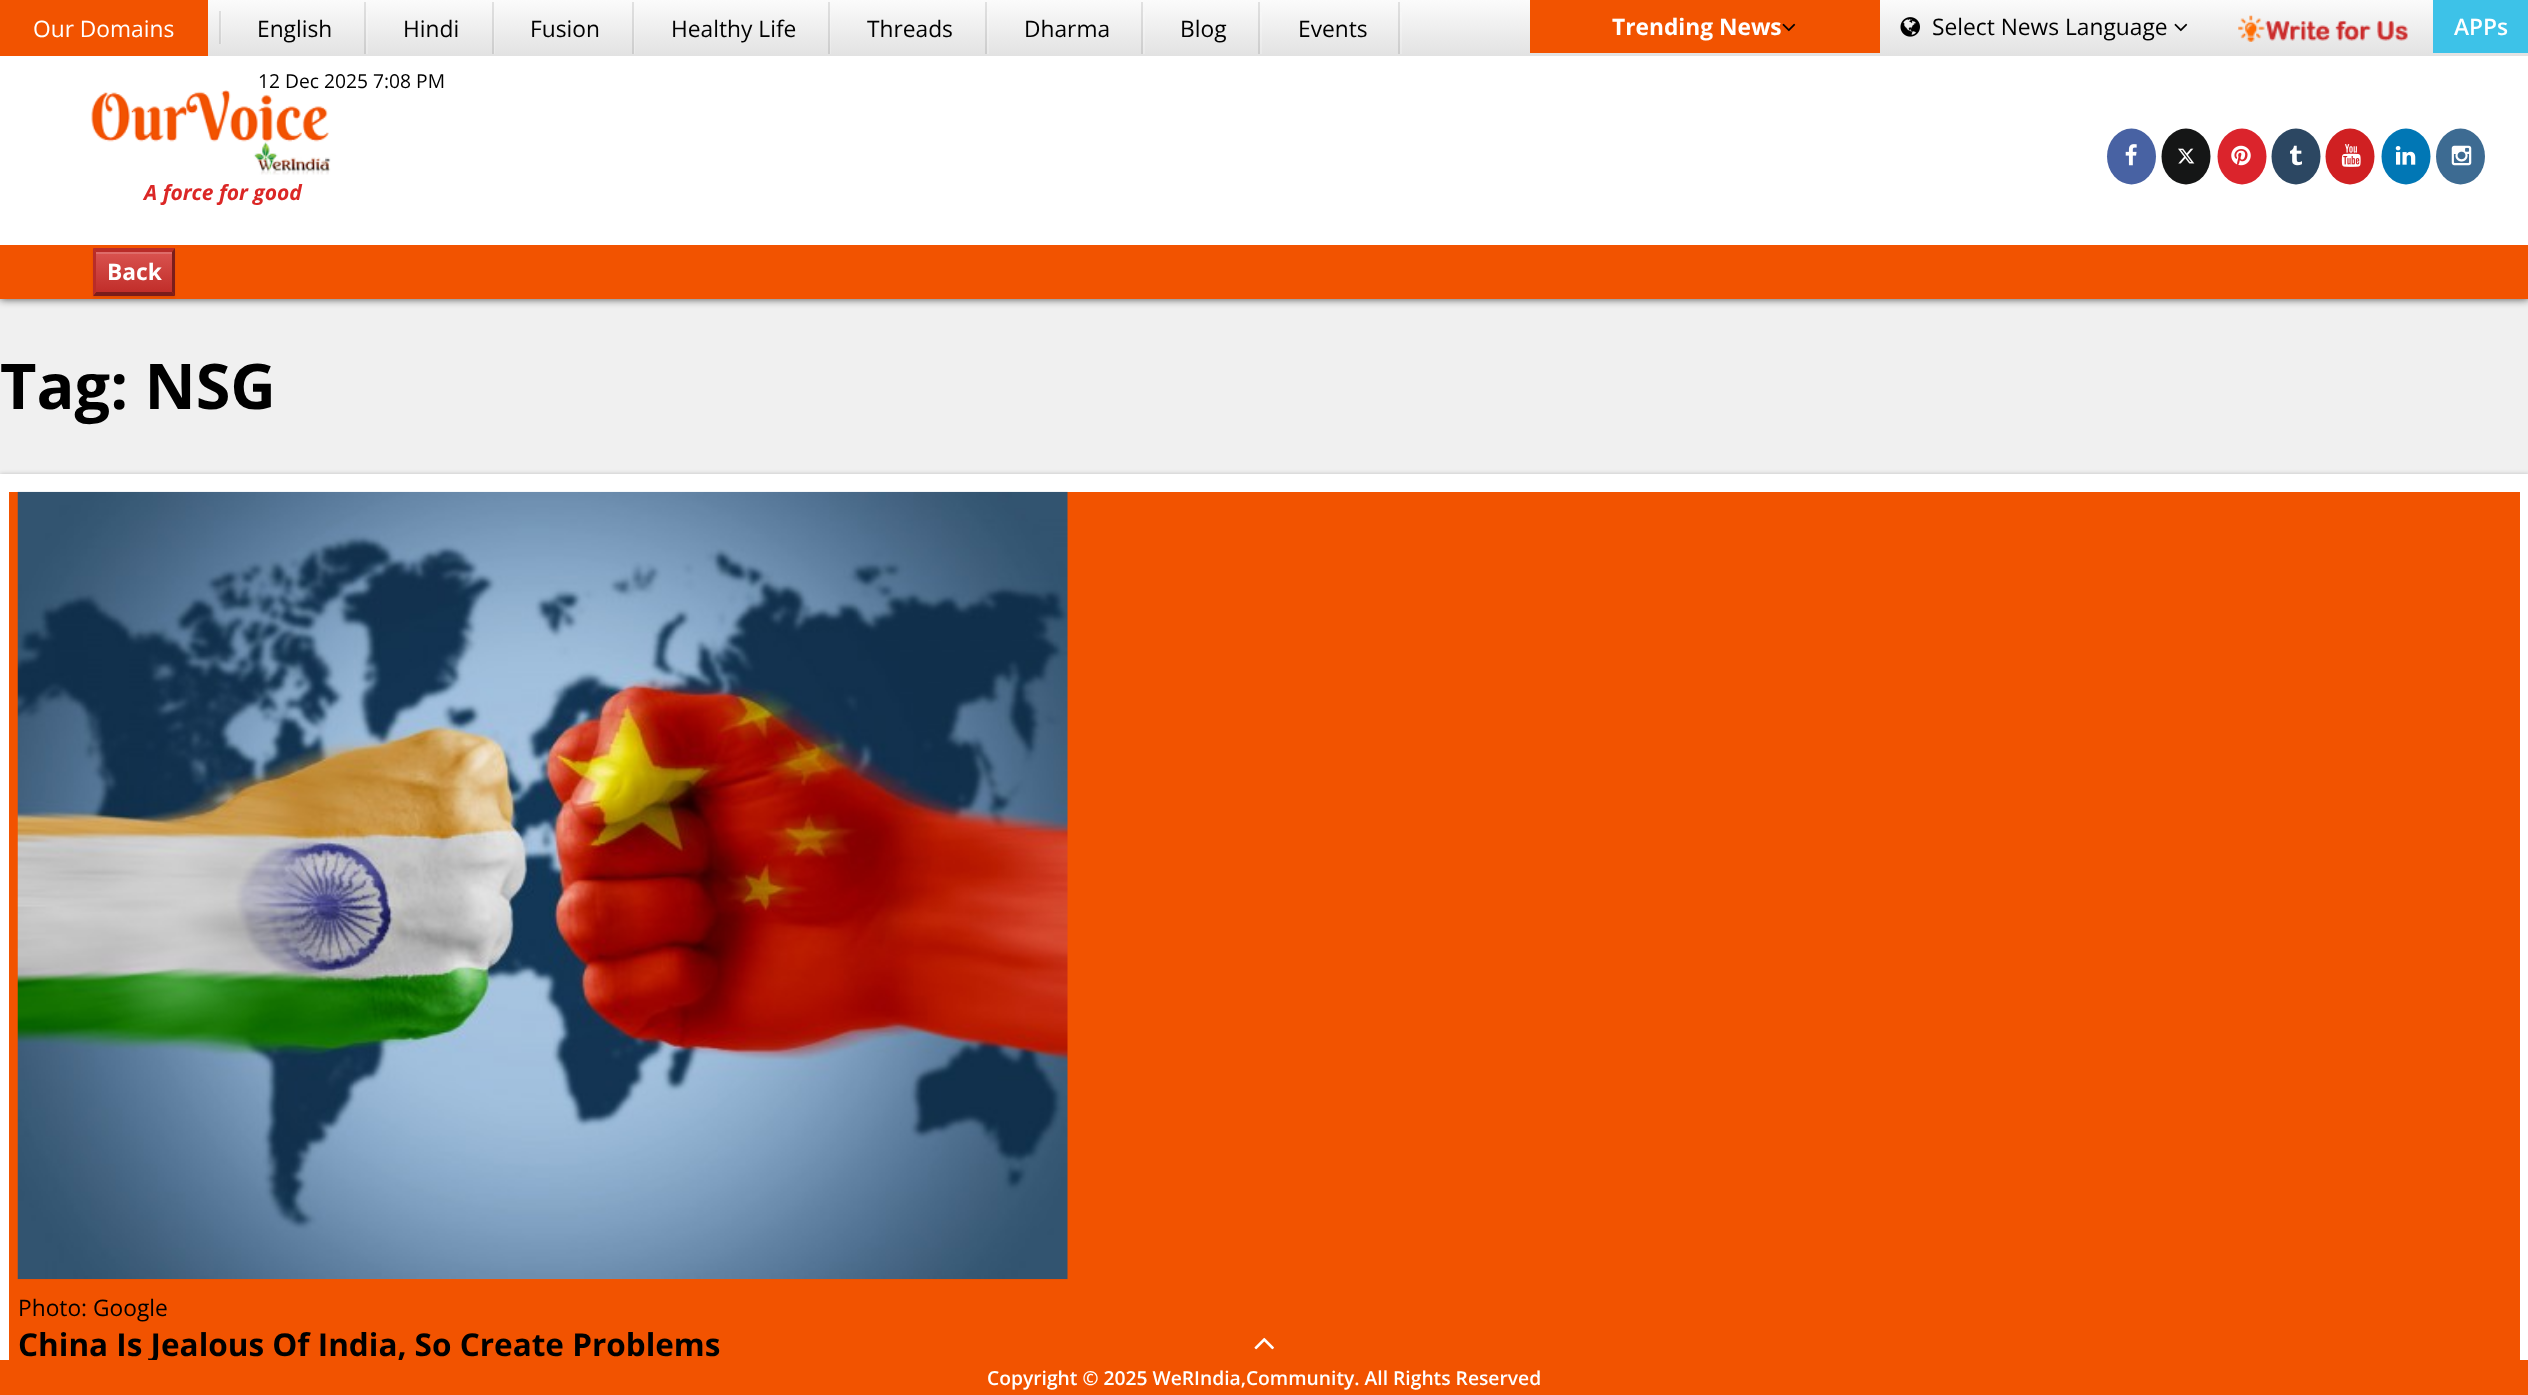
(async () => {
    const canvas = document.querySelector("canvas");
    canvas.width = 2528;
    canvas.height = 1395;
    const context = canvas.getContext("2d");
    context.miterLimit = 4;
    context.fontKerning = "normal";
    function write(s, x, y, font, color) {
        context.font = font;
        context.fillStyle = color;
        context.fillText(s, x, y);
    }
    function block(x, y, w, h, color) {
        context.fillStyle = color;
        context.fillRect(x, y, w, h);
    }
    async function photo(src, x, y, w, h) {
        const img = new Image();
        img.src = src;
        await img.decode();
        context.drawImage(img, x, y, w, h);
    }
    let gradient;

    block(0, 0, 2528, 1395, "rgb(240, 240, 240)");
    context.fillStyle = "rgba(0, 0, 0, 0.7)";
    context.filter = "blur(4.5px)";
    context.beginPath();
    context.rect(0, 0, 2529, 299);
    context.fill();
    context.filter = "none";
    block(0, 56, 2528, 189, "rgb(255, 255, 255)");
    gradient = context.createLinearGradient(1264, 0, 1264, 56);
    gradient.addColorStop(0, "rgb(251, 251, 251)");
    gradient.addColorStop(1, "rgb(226, 226, 226)");
    context.fillStyle = gradient;
    context.fillRect(208, 0, 2320, 56);
    gradient = context.createLinearGradient(1264, 0, 1264, 56);
    gradient.addColorStop(0, "rgb(226, 226, 226)");
    gradient.addColorStop(1, "rgb(203, 203, 203)");
    context.fillStyle = gradient;
    context.fillRect(1398, 2, 2, 52);
    gradient = context.createLinearGradient(1264, 0, 1264, 56);
    gradient.addColorStop(0, "rgb(252, 252, 252)");
    gradient.addColorStop(1, "rgb(232, 232, 232)");
    context.fillStyle = gradient;
    context.fillRect(1400, 12, 2, 42);
    gradient = context.createLinearGradient(1264, 0, 1264, 56);
    gradient.addColorStop(0, "rgb(226, 226, 226)");
    gradient.addColorStop(1, "rgb(203, 203, 203)");
    context.fillStyle = gradient;
    context.fillRect(1258, 2, 2, 52);
    gradient = context.createLinearGradient(1264, 0, 1264, 56);
    gradient.addColorStop(0, "rgb(252, 252, 252)");
    gradient.addColorStop(1, "rgb(232, 232, 232)");
    context.fillStyle = gradient;
    context.fillRect(1260, 12, 2, 42);
    gradient = context.createLinearGradient(1264, 0, 1264, 56);
    gradient.addColorStop(0, "rgb(226, 226, 226)");
    gradient.addColorStop(1, "rgb(203, 203, 203)");
    context.fillStyle = gradient;
    context.fillRect(1141, 2, 2, 52);
    gradient = context.createLinearGradient(1264, 0, 1264, 56);
    gradient.addColorStop(0, "rgb(252, 252, 252)");
    gradient.addColorStop(1, "rgb(232, 232, 232)");
    context.fillStyle = gradient;
    context.fillRect(1143, 12, 2, 42);
    gradient = context.createLinearGradient(1264, 0, 1264, 56);
    gradient.addColorStop(0, "rgb(226, 226, 226)");
    gradient.addColorStop(1, "rgb(203, 203, 203)");
    context.fillStyle = gradient;
    context.fillRect(985, 2, 2, 52);
    gradient = context.createLinearGradient(1264, 0, 1264, 56);
    gradient.addColorStop(0, "rgb(252, 252, 252)");
    gradient.addColorStop(1, "rgb(232, 232, 232)");
    context.fillStyle = gradient;
    context.fillRect(987, 12, 2, 42);
    gradient = context.createLinearGradient(1264, 0, 1264, 56);
    gradient.addColorStop(0, "rgb(226, 226, 226)");
    gradient.addColorStop(1, "rgb(203, 203, 203)");
    context.fillStyle = gradient;
    context.fillRect(828, 2, 2, 52);
    gradient = context.createLinearGradient(1264, 0, 1264, 56);
    gradient.addColorStop(0, "rgb(252, 252, 252)");
    gradient.addColorStop(1, "rgb(232, 232, 232)");
    context.fillStyle = gradient;
    context.fillRect(830, 12, 1, 42);
    gradient = context.createLinearGradient(1264, 0, 1264, 56);
    gradient.addColorStop(0, "rgb(226, 226, 226)");
    gradient.addColorStop(1, "rgb(203, 203, 203)");
    context.fillStyle = gradient;
    context.fillRect(632, 2, 2, 52);
    gradient = context.createLinearGradient(1264, 0, 1264, 56);
    gradient.addColorStop(0, "rgb(252, 252, 252)");
    gradient.addColorStop(1, "rgb(232, 232, 232)");
    context.fillStyle = gradient;
    context.fillRect(634, 12, 1, 42);
    gradient = context.createLinearGradient(1264, 0, 1264, 56);
    gradient.addColorStop(0, "rgb(226, 226, 226)");
    gradient.addColorStop(1, "rgb(203, 203, 203)");
    context.fillStyle = gradient;
    context.fillRect(492, 2, 2, 52);
    gradient = context.createLinearGradient(1264, 0, 1264, 56);
    gradient.addColorStop(0, "rgb(252, 252, 252)");
    gradient.addColorStop(1, "rgb(232, 232, 232)");
    context.fillStyle = gradient;
    context.fillRect(494, 12, 1, 42);
    gradient = context.createLinearGradient(1264, 0, 1264, 56);
    gradient.addColorStop(0, "rgb(226, 226, 226)");
    gradient.addColorStop(1, "rgb(203, 203, 203)");
    context.fillStyle = gradient;
    context.fillRect(364, 2, 2, 52);
    gradient = context.createLinearGradient(1264, 0, 1264, 56);
    gradient.addColorStop(0, "rgb(252, 252, 252)");
    gradient.addColorStop(1, "rgb(232, 232, 232)");
    context.fillStyle = gradient;
    context.fillRect(366, 12, 2, 42);
    context.fillStyle = "rgba(255, 255, 255, 0.2)";
    context.beginPath();
    context.moveTo(-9, 44);
    context.lineTo(222, 44);
    context.lineTo(222, 11);
    context.lineTo(220, 11);
    context.lineTo(220, 44);
    context.closePath();
    context.fill();
    block(219, 11, 2, 33, "rgba(0, 0, 0, 0.1)");
    block(0, 0, 208, 56, "rgb(242, 83, 0)");
    write("Our Domains", 33, 37, "22.75px Open Sans", "rgb(255, 255, 255)");
    write("English", 257, 37, "22.75px Open Sans", "rgb(0, 0, 0)");
    write("Hindi", 403, 37, "22.75px Open Sans", "rgb(0, 0, 0)");
    write("Fusion", 530, 37, "22.75px Open Sans", "rgb(0, 0, 0)");
    write("Healthy Life", 671, 37, "22.75px Open Sans", "rgb(0, 0, 0)");
    write("Threads", 867, 37, "22.75px Open Sans", "rgb(0, 0, 0)");
    write("Dharma", 1024, 37, "22.75px Open Sans", "rgb(0, 0, 0)");
    write("Blog", 1180, 37, "22.75px Open Sans", "rgb(0, 0, 0)");
    write("Events", 1298, 37, "22.75px Open Sans", "rgb(0, 0, 0)");
    block(1530, 0, 350, 53, "rgb(242, 83, 0)");
    write("Trending News", 1612, 35, "bold 22.75px Open Sans", "rgb(255, 255, 255)");
    await photo("media/1.png", 1782, 23, 14, 9);
    await photo("media/2.png", 1900, 17, 20, 20);
    write("Select News Language", 1932, 35, "22.75px Open Sans", "rgb(0, 0, 0)");
    await photo("media/3.png", 2174, 23, 14, 9);
    await photo("media/4.png", 2238, 15, 170, 27);
    block(2433, 0, 95, 53, "rgb(61, 194, 232)");
    write("APPs", 2454, 35, "600 22.75px Open Sans", "rgb(255, 255, 255)");
    write("12 Dec 2025 7:08 PM", 258, 88, "19.25px Open Sans", "rgb(0, 0, 0)");
    await photo("media/5.png", 91, 90, 240, 85);
    write("A force for good", 144, 200, "italic bold 21px Open Sans", "rgb(219, 39, 38)");
    context.fillStyle = "rgb(72, 98, 163)";
    context.beginPath();
    context.ellipse(2131.5, 156.5, 24.5, 28, 0, 0, Math.PI * 2);
    context.fill();
    await photo("media/6.png", 2125, 144, 12, 22);
    context.fillStyle = "rgb(21, 22, 22)";
    context.beginPath();
    context.ellipse(2186, 156.5, 24.5, 28, 0, 0, Math.PI * 2);
    context.fill();
    await photo("media/7.png", 2178, 148, 17, 16);
    context.fillStyle = "rgb(219, 36, 44)";
    context.beginPath();
    context.ellipse(2242, 156.5, 24.5, 28, 0, 0, Math.PI * 2);
    context.fill();
    await photo("media/8.png", 2231, 145, 20, 21);
    context.fillStyle = "rgb(44, 71, 98)";
    context.beginPath();
    context.ellipse(2296, 156.5, 24.5, 28, 0, 0, Math.PI * 2);
    context.fill();
    await photo("media/9.png", 2290, 145, 12, 21);
    context.fillStyle = "rgb(208, 32, 34)";
    context.beginPath();
    context.ellipse(2350, 156.5, 24.5, 28, 0, 0, Math.PI * 2);
    context.fill();
    await photo("media/10.png", 2341, 144, 20, 23);
    context.fillStyle = "rgb(1, 119, 181)";
    context.beginPath();
    context.ellipse(2406, 156.5, 24.5, 28, 0, 0, Math.PI * 2);
    context.fill();
    await photo("media/11.png", 2395, 146, 21, 19);
    context.fillStyle = "rgb(61, 107, 146)";
    context.beginPath();
    context.ellipse(2460.5, 156.5, 24.5, 28, 0, 0, Math.PI * 2);
    context.fill();
    await photo("media/12.png", 2451, 145, 21, 21);
    block(0, 245, 2528, 54, "rgb(242, 83, 0)");
    context.fillStyle = "rgba(0, 0, 0, 0.07)";
    context.filter = "blur(1px)";
    context.beginPath();
    context.rect(93, 250, 82, 48);
    context.fill();
    context.filter = "none";
    gradient = context.createLinearGradient(134, 252, 134, 292);
    gradient.addColorStop(0, "rgb(217, 83, 79)");
    gradient.addColorStop(1, "rgb(193, 46, 42)");
    context.fillStyle = gradient;
    context.fillRect(96, 254, 76, 38);
    block(96, 252, 76, 2, "rgb(222, 108, 105)");
    context.fillStyle = "rgb(185, 44, 40)";
    context.beginPath();
    context.moveTo(93, 248);
    context.lineTo(175, 248);
    context.lineTo(172, 252);
    context.lineTo(96, 252);
    context.closePath();
    context.fill();
    context.fillStyle = "rgb(123, 29, 27)";
    context.beginPath();
    context.moveTo(175, 248);
    context.lineTo(175, 296);
    context.lineTo(172, 292);
    context.lineTo(172, 252);
    context.closePath();
    context.fill();
    context.beginPath();
    context.moveTo(175, 296);
    context.lineTo(93, 296);
    context.lineTo(96, 292);
    context.lineTo(172, 292);
    context.closePath();
    context.fill();
    context.fillStyle = "rgb(185, 44, 40)";
    context.beginPath();
    context.moveTo(93, 296);
    context.lineTo(93, 248);
    context.lineTo(96, 252);
    context.lineTo(96, 292);
    context.closePath();
    context.fill();
    write("Back", 107, 280, "bold 22.75px Open Sans", "rgb(255, 255, 255)");
    write("Tag: NSG", 0, 409, "bold 63px Open Sans", "rgb(0, 0, 0)");
    context.fillStyle = "rgba(0, 0, 0, 0.2)";
    context.filter = "blur(2px)";
    context.beginPath();
    context.rect(0, 474, 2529, 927);
    context.fill();
    context.filter = "none";
    block(0, 474, 2528, 886, "rgb(255, 255, 255)");
    block(9, 492, 2511, 868, "rgb(242, 83, 0)");
    await photo("media/13.png", 17, 491, 1051, 789);
    write("Photo: Google", 18, 1316, "22.75px Open Sans", "rgb(0, 0, 0)");
    write("China Is Jealous Of India, So Create Problems", 18, 1356, "bold 31.5px Open Sans", "rgb(0, 0, 0)");
    block(0, 1360, 2528, 35, "rgb(242, 83, 0)");
    await photo("media/14.png", 1254, 1337, 20, 13);
    write("Copyright © 2025 WeRIndia,Community. All Rights Reserved", 987, 1385, "600 19.25px Open Sans", "rgb(255, 255, 255)");
})();
